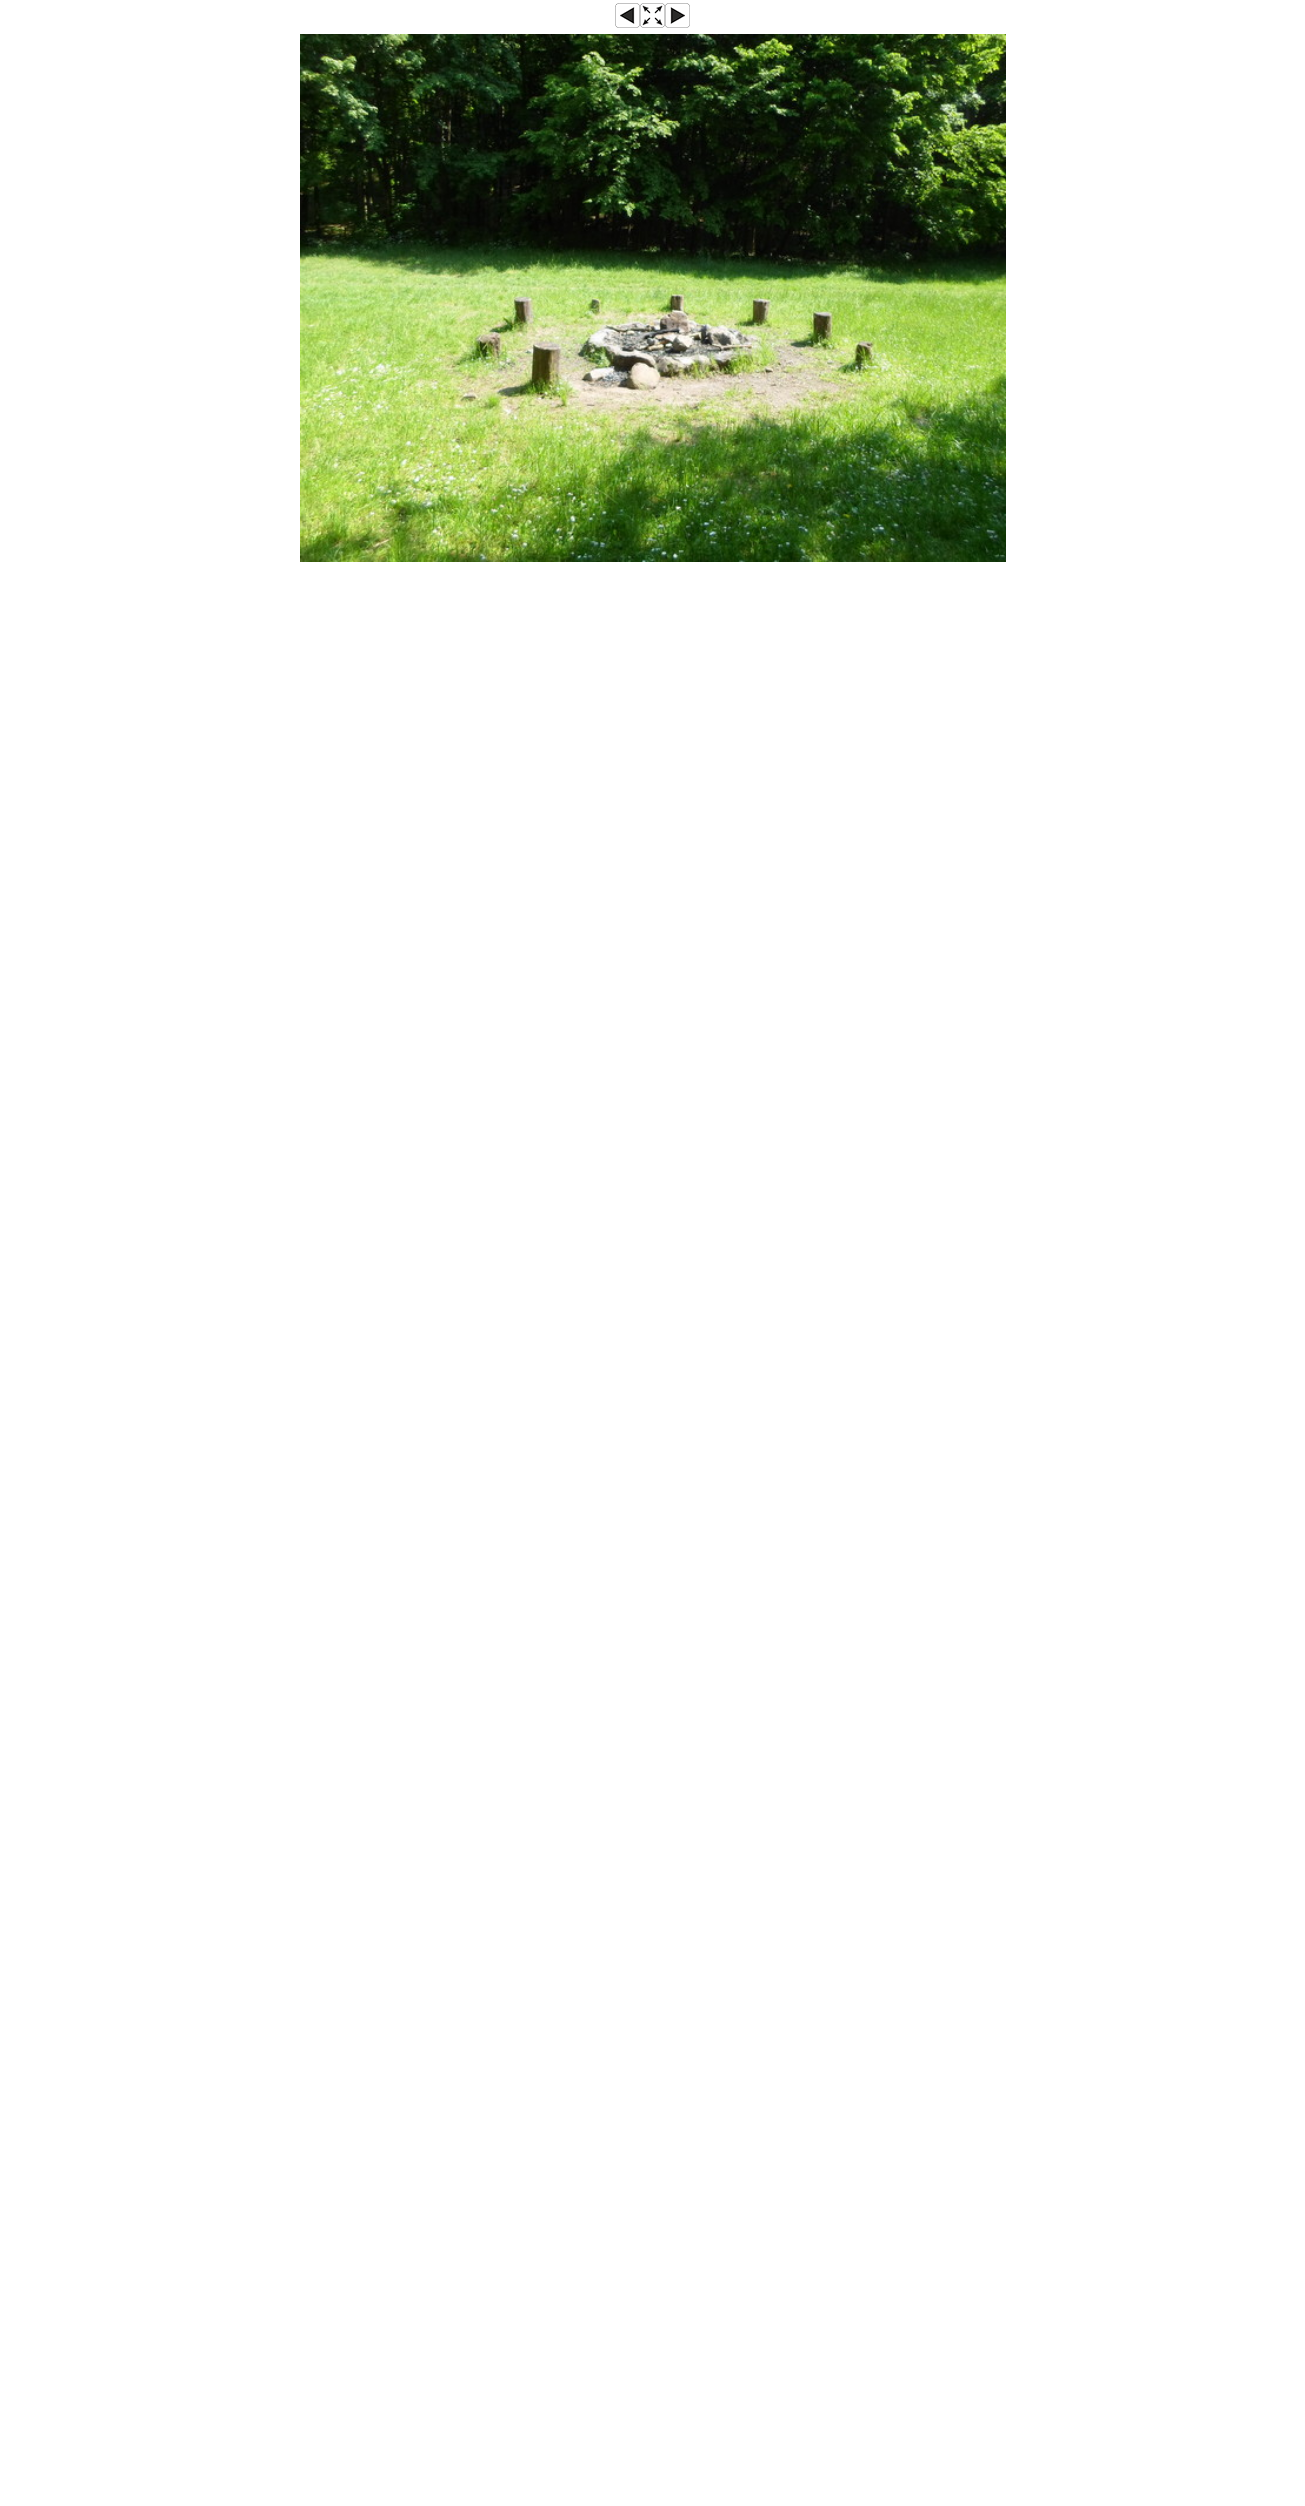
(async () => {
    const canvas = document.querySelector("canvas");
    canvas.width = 1305;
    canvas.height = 2506;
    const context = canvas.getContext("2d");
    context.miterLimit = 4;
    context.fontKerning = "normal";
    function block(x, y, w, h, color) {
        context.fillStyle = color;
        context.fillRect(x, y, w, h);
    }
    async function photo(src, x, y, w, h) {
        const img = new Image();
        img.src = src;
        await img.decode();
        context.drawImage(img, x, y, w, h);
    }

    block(0, 0, 1305, 2506, "rgb(255, 255, 255)");
    await photo("media/1.png", 615, 3, 25, 25);
    await photo("media/2.png", 640, 3, 25, 25);
    await photo("media/3.png", 665, 3, 25, 25);
    await photo("media/4.png", 300, 34, 706, 528);
})();
